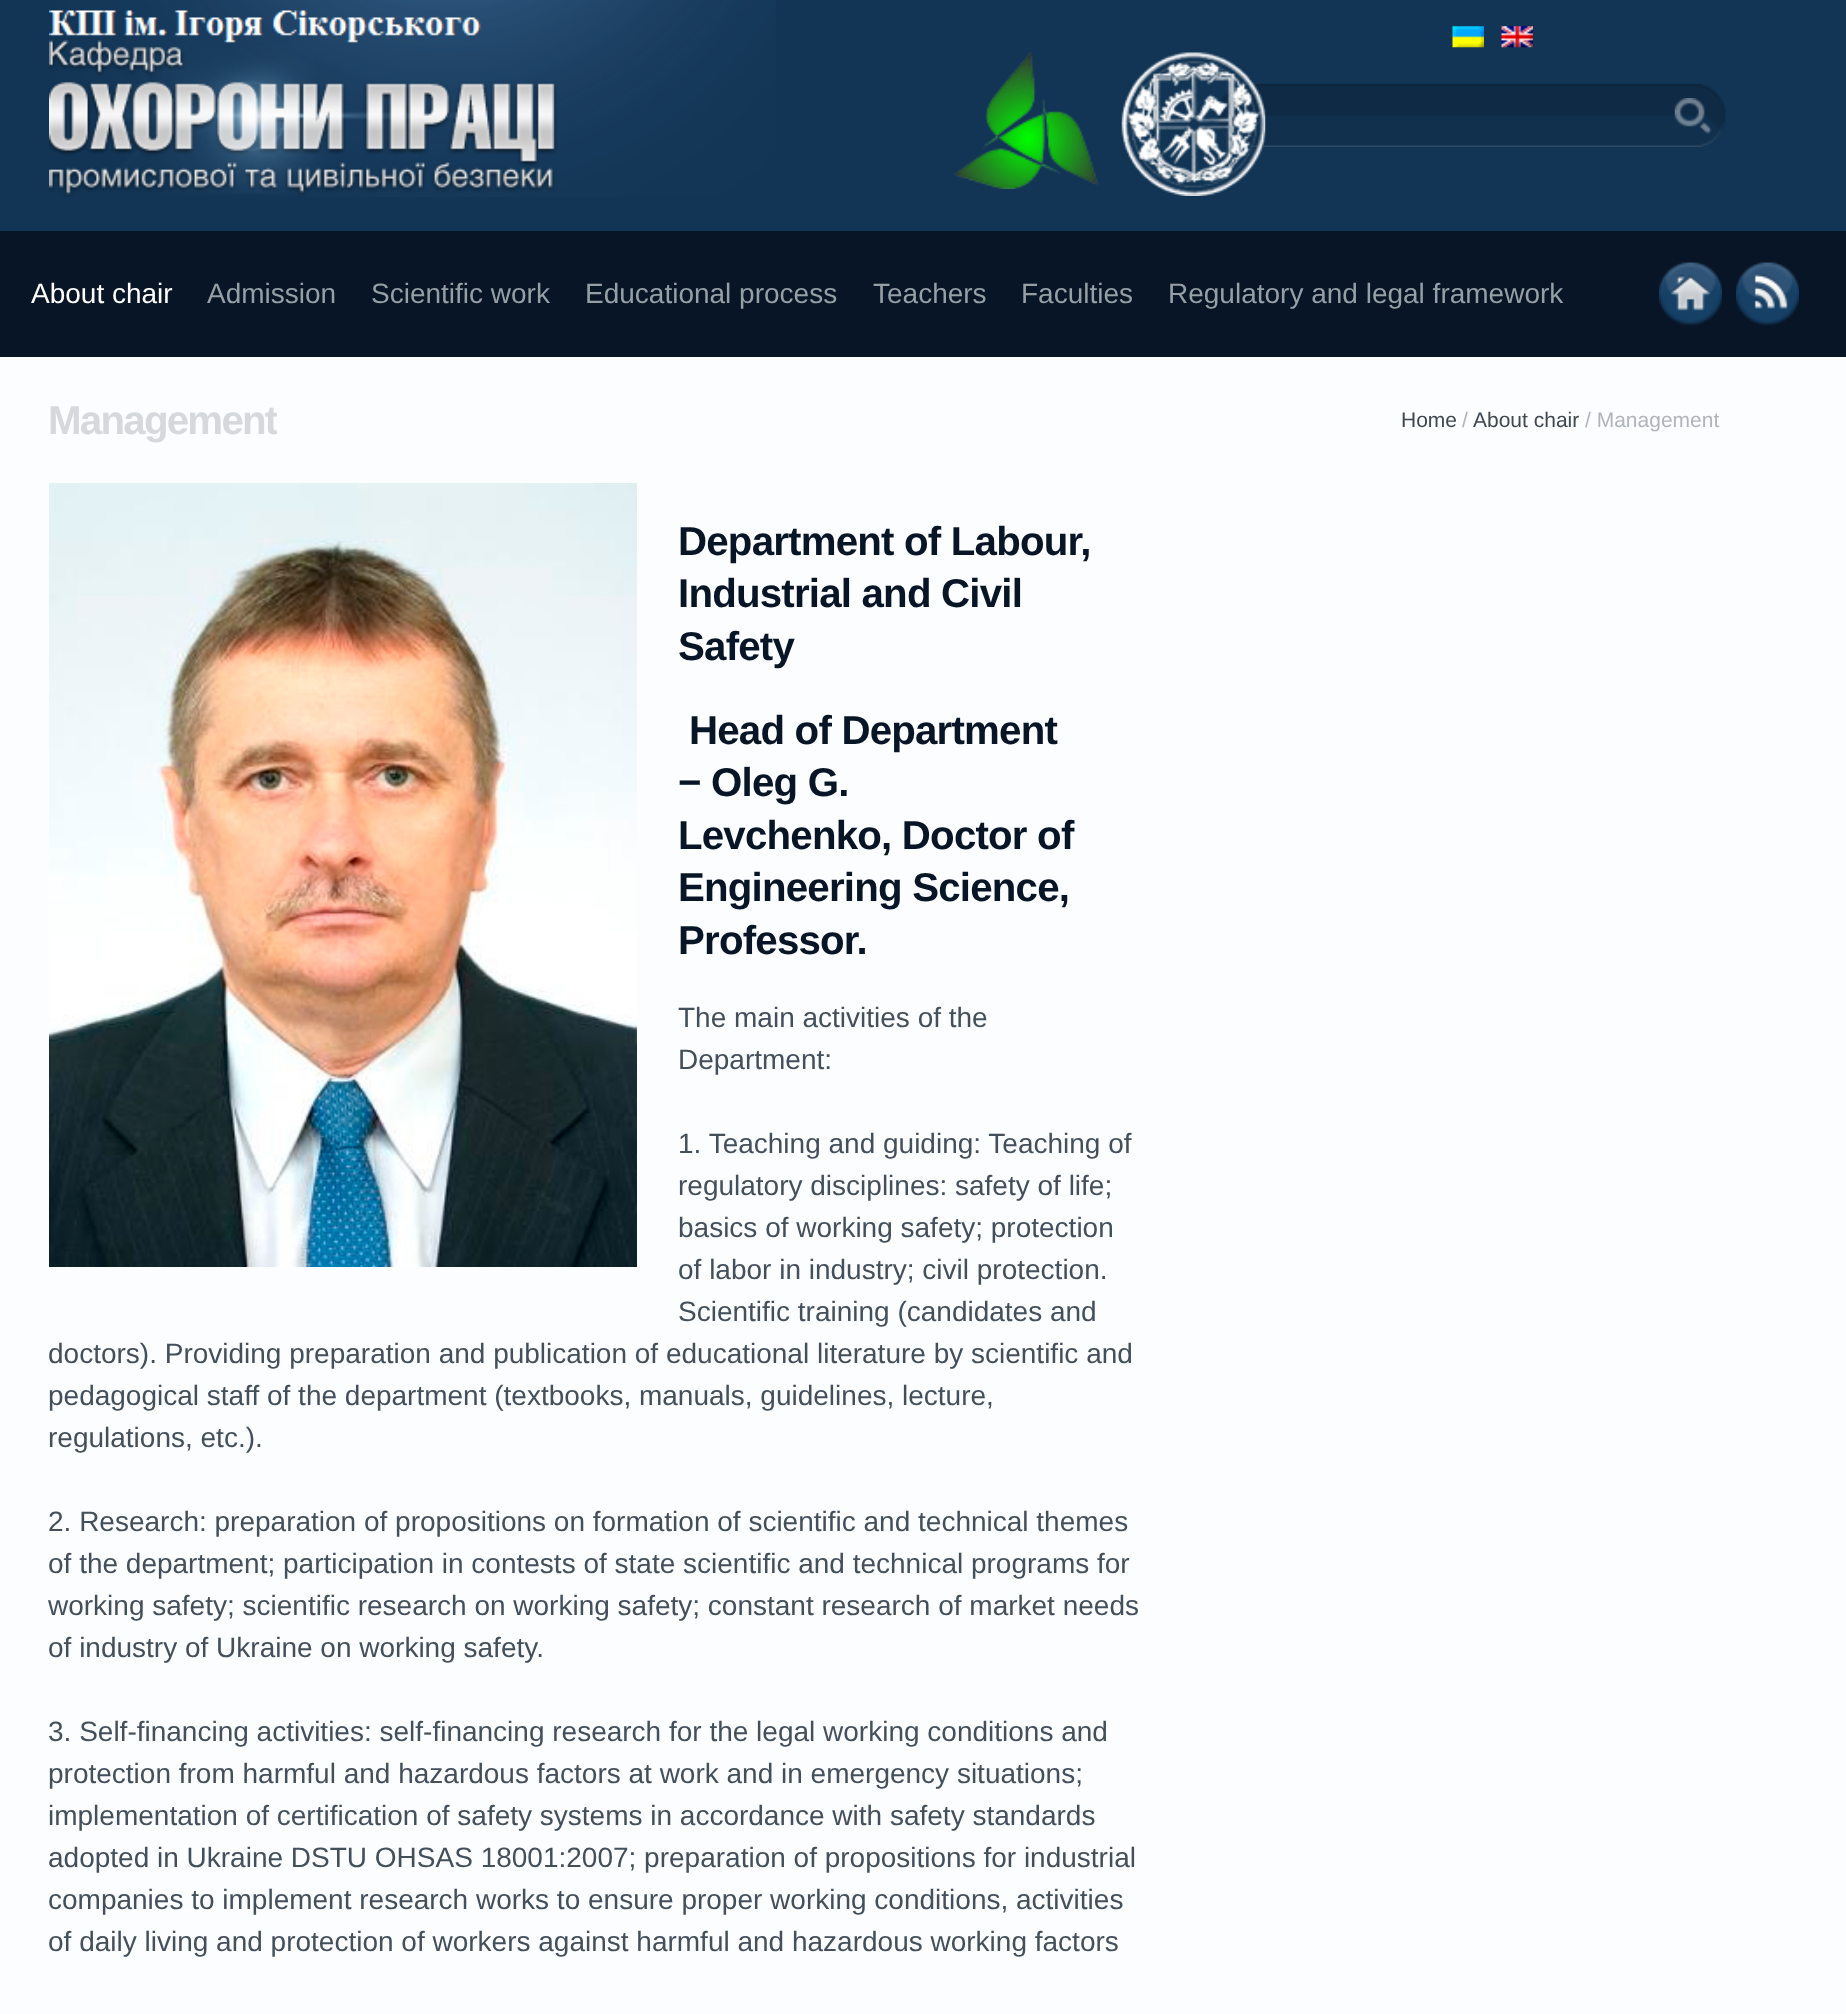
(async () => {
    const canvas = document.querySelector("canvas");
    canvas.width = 1846;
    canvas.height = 2014;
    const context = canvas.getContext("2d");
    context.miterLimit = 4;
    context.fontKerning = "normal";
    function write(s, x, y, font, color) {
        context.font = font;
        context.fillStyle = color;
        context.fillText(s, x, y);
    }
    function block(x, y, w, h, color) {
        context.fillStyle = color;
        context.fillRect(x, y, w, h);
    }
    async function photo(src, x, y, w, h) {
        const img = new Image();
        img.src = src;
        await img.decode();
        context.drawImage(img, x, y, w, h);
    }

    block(0, 0, 1846, 2014, "rgb(251, 253, 255)");
    block(0, 0, 1846, 231, "rgb(18, 53, 85)");
    await photo("media/1.png", 49, 0, 727, 197);
    await photo("media/2.png", 953, 52, 146, 137);
    await photo("media/6.png", 1218, 84, 508, 63);
    await photo("media/3.png", 1121, 52, 145, 144);
    await photo("media/4.png", 1452, 26, 32, 22);
    await photo("media/5.png", 1501, 26, 32, 22);
    await photo("media/7.png", 1674, 98, 38, 36);
    block(0, 231, 1846, 126, "rgb(7, 21, 38)");
    write("About chair", 31, 303, "28px Liberation Sans", "rgb(255, 255, 255)");
    write("Admission", 207, 303, "28px Liberation Sans", "rgb(150, 158, 166)");
    write("Scientific work", 371, 303, "28px Liberation Sans", "rgb(150, 158, 166)");
    write("Educational process", 585, 303, "28px Liberation Sans", "rgb(150, 158, 166)");
    write("Teachers", 873, 303, "28px Liberation Sans", "rgb(150, 158, 166)");
    write("Faculties", 1021, 303, "28px Liberation Sans", "rgb(150, 158, 166)");
    write("Regulatory and legal framework", 1168, 303, "28px Liberation Sans", "rgb(150, 158, 166)");
    await photo("media/8.png", 1659, 262, 63, 64);
    await photo("media/9.png", 1736, 262, 63, 64);
    context.save();
    context.beginPath();
    context.rect(49, 357, 228, 126);
    context.clip();
    context.letterSpacing = "-1.75px";
    write("Management", 48, 434, "bold 40.25px Liberation Sans", "rgb(213, 217, 220)");
    context.restore();
    write("Home", 1401, 427, "21px Liberation Sans", "rgb(63, 72, 81)");
    write("/", 1462, 427, "21px Liberation Sans", "rgb(176, 181, 185)");
    write("About chair", 1473, 427, "21px Liberation Sans", "rgb(63, 72, 81)");
    write("/ Management", 1585, 427, "21px Liberation Sans", "rgb(176, 181, 185)");
    await photo("media/10.png", 49, 483, 588, 784);
    context.letterSpacing = "-0.8px";
    write("Department of Labour,", 678, 555, "bold 40.25px Liberation Sans", "rgb(7, 21, 38)");
    write("Industrial and Civil", 678, 607, "bold 40.25px Liberation Sans", "rgb(7, 21, 38)");
    write("Safety", 678, 660, "bold 40.25px Liberation Sans", "rgb(7, 21, 38)");
    write("Head of Department", 689, 744, "bold 40.25px Liberation Sans", "rgb(7, 21, 38)");
    write("− Oleg G.", 678, 796, "bold 40.25px Liberation Sans", "rgb(7, 21, 38)");
    write("Levchenko, Doctor of", 678, 849, "bold 40.25px Liberation Sans", "rgb(7, 21, 38)");
    write("Engineering Science,", 678, 901, "bold 40.25px Liberation Sans", "rgb(7, 21, 38)");
    write("Professor.", 678, 954, "bold 40.25px Liberation Sans", "rgb(7, 21, 38)");
    context.letterSpacing = "0px";
    write("The main activities of the", 678, 1027, "28px Liberation Sans", "rgb(68, 79, 92)");
    write("Department:", 678, 1069, "28px Liberation Sans", "rgb(68, 79, 92)");
    write("1. Teaching and guiding: Teaching of", 678, 1153, "28px Liberation Sans", "rgb(68, 79, 92)");
    write("regulatory disciplines: safety of life;", 678, 1195, "28px Liberation Sans", "rgb(68, 79, 92)");
    write("basics of working safety; protection", 678, 1237, "28px Liberation Sans", "rgb(68, 79, 92)");
    write("of labor in industry; civil protection.", 678, 1279, "28px Liberation Sans", "rgb(68, 79, 92)");
    write("Scientific training (candidates and", 678, 1321, "28px Liberation Sans", "rgb(68, 79, 92)");
    write("doctors). Providing preparation and publication of educational literature by scientific and", 48, 1363, "28px Liberation Sans", "rgb(68, 79, 92)");
    write("pedagogical staff of the department (textbooks, manuals, guidelines, lecture,", 48, 1405, "28px Liberation Sans", "rgb(68, 79, 92)");
    write("regulations, etc.).", 48, 1447, "28px Liberation Sans", "rgb(68, 79, 92)");
    write("2. Research: preparation of propositions on formation of scientific and technical themes", 48, 1531, "28px Liberation Sans", "rgb(68, 79, 92)");
    write("of the department; participation in contests of state scientific and technical programs for", 48, 1573, "28px Liberation Sans", "rgb(68, 79, 92)");
    write("working safety; scientific research on working safety; constant research of market needs", 48, 1615, "28px Liberation Sans", "rgb(68, 79, 92)");
    write("of industry of Ukraine on working safety.", 48, 1657, "28px Liberation Sans", "rgb(68, 79, 92)");
    write("3. Self-financing activities: self-financing research for the legal working conditions and", 48, 1741, "28px Liberation Sans", "rgb(68, 79, 92)");
    write("protection from harmful and hazardous factors at work and in emergency situations;", 48, 1783, "28px Liberation Sans", "rgb(68, 79, 92)");
    write("implementation of certification of safety systems in accordance with safety standards", 48, 1825, "28px Liberation Sans", "rgb(68, 79, 92)");
    write("adopted in Ukraine DSTU OHSAS 18001:2007; preparation of propositions for industrial", 48, 1867, "28px Liberation Sans", "rgb(68, 79, 92)");
    write("companies to implement research works to ensure proper working conditions, activities", 48, 1909, "28px Liberation Sans", "rgb(68, 79, 92)");
    write("of daily living and protection of workers against harmful and hazardous working factors", 48, 1951, "28px Liberation Sans", "rgb(68, 79, 92)");
})();
